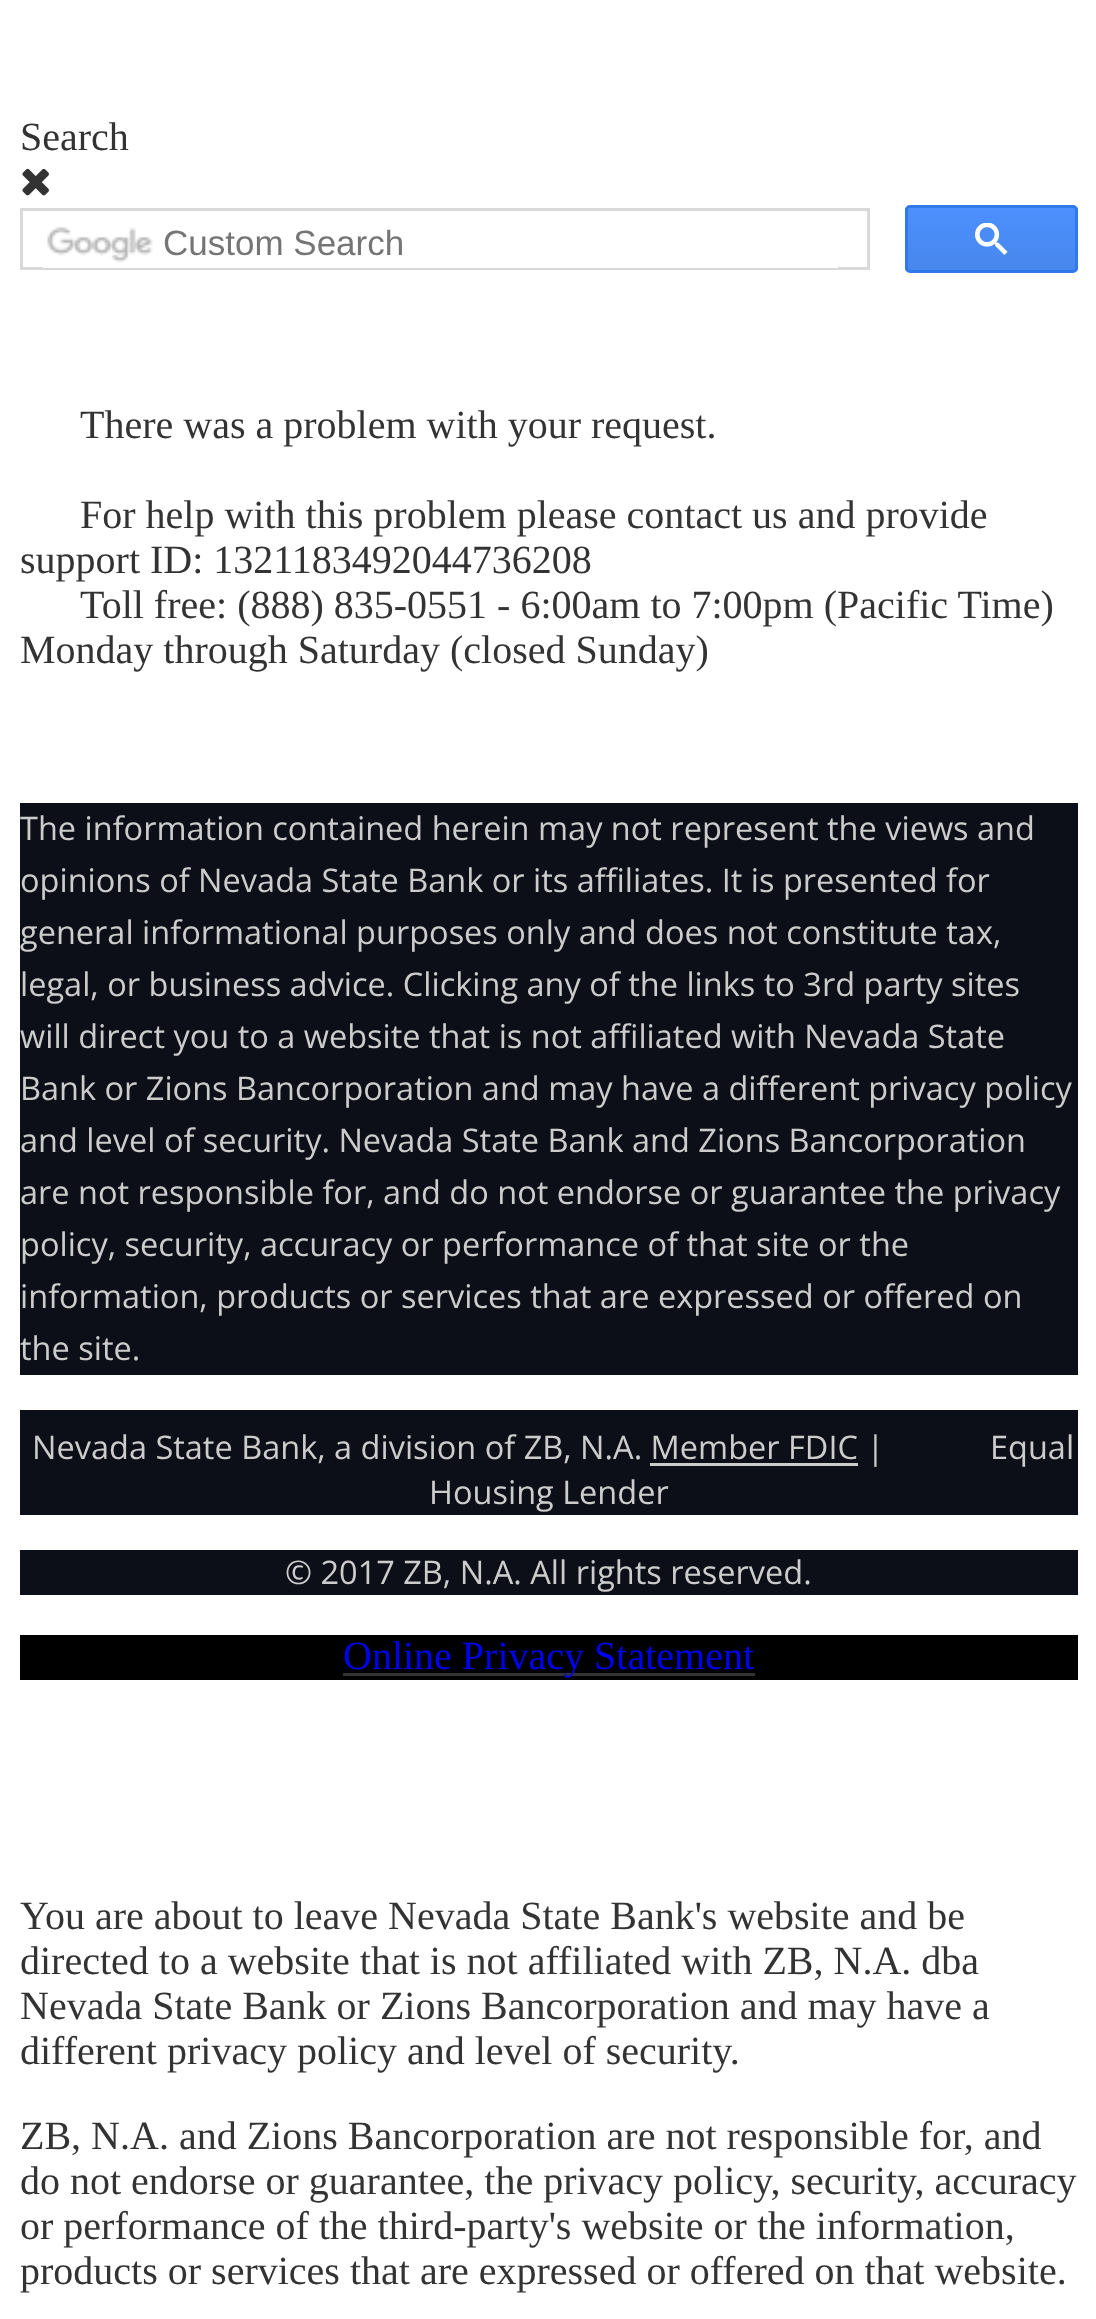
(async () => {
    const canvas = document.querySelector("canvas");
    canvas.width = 1096;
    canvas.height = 2319;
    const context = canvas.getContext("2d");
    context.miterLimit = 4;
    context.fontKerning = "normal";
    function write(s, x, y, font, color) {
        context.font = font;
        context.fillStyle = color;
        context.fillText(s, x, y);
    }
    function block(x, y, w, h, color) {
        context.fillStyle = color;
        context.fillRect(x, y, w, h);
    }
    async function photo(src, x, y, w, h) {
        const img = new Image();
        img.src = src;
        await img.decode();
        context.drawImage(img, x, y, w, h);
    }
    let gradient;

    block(0, 0, 1096, 2319, "rgb(255, 255, 255)");
    write("Search", 20, 150, "40px Liberation Serif", "rgb(51, 51, 51)");
    await photo("media/1.png", 22, 168, 27, 28);
    context.strokeStyle = "rgb(217, 217, 217)";
    context.lineWidth = 3;
    context.strokeRect(21.5, 209.5, 847, 59);
    block(43, 267, 795, 1, "rgb(255, 255, 255)");
    await photo("media/2.png", 47, 226, 106, 37);
    write("Custom Search", 163, 255, "35px Liberation Sans", "rgb(117, 117, 117)");
    context.save();
    context.beginPath();
    context.roundRect(905, 205, 173, 68, 5);
    context.clip();
    gradient = context.createLinearGradient(991, 208, 991, 270);
    gradient.addColorStop(0, "rgb(77, 144, 254)");
    gradient.addColorStop(1, "rgb(71, 135, 237)");
    context.fillStyle = gradient;
    context.fillRect(905, 208, 173, 62);
    context.restore();
    context.beginPath();
    context.roundRect(906.5, 206.5, 170, 65, 3.5);
    context.strokeStyle = "rgb(48, 121, 237)";
    context.stroke();
    await photo("media/3.png", 975, 223, 33, 32);
    write("There was a problem with your request.", 80, 438, "40px Liberation Serif", "rgb(51, 51, 51)");
    write("For help with this problem please contact us and provide", 80, 528, "40px Liberation Serif", "rgb(51, 51, 51)");
    write("support ID: 1321183492044736208", 20, 573, "40px Liberation Serif", "rgb(51, 51, 51)");
    write("Toll free: (888) 835-0551 - 6:00am to 7:00pm (Pacific Time)", 80, 618, "40px Liberation Serif", "rgb(51, 51, 51)");
    write("Monday through Saturday (closed Sunday)", 20, 663, "40px Liberation Serif", "rgb(51, 51, 51)");
    block(20, 803, 1058, 572, "rgb(12, 15, 23)");
    write("The information contained herein may not represent the views and", 20, 840, "32.5px Open Sans", "rgb(204, 204, 204)");
    write("opinions of Nevada State Bank or its affiliates. It is presented for", 20, 892, "32.5px Open Sans", "rgb(204, 204, 204)");
    write("general informational purposes only and does not constitute tax,", 20, 944, "32.5px Open Sans", "rgb(204, 204, 204)");
    write("legal, or business advice. Clicking any of the links to 3rd party sites", 20, 996, "32.5px Open Sans", "rgb(204, 204, 204)");
    write("will direct you to a website that is not affiliated with Nevada State", 20, 1048, "32.5px Open Sans", "rgb(204, 204, 204)");
    write("Bank or Zions Bancorporation and may have a different privacy policy", 20, 1100, "32.5px Open Sans", "rgb(204, 204, 204)");
    write("and level of security. Nevada State Bank and Zions Bancorporation", 20, 1152, "32.5px Open Sans", "rgb(204, 204, 204)");
    write("are not responsible for, and do not endorse or guarantee the privacy", 20, 1204, "32.5px Open Sans", "rgb(204, 204, 204)");
    write("policy, security, accuracy or performance of that site or the", 20, 1256, "32.5px Open Sans", "rgb(204, 204, 204)");
    write("information, products or services that are expressed or offered on", 20, 1308, "32.5px Open Sans", "rgb(204, 204, 204)");
    write("the site.", 20, 1360, "32.5px Open Sans", "rgb(204, 204, 204)");
    block(20, 1410, 1058, 105, "rgb(12, 15, 23)");
    write("Nevada State Bank, a division of ZB, N.A. Member FDIC |", 32, 1459, "32.5px Open Sans", "rgb(204, 204, 204)");
    write("Equal", 990, 1459, "32.5px Open Sans", "rgb(204, 204, 204)");
    block(650, 1463, 208, 3, "rgb(204, 204, 204)");
    write("Housing Lender", 429, 1504, "32.5px Open Sans", "rgb(204, 204, 204)");
    block(20, 1550, 1058, 45, "rgb(12, 15, 23)");
    write("© 2017 ZB, N.A. All rights reserved.", 285, 1584, "32.5px Open Sans", "rgb(204, 204, 204)");
    block(20, 1635, 1058, 45, "rgb(0, 0, 0)");
    block(343, 1673, 412, 3, "rgb(51, 51, 51)");
    write("Online Privacy Statement", 343, 1669, "40px Liberation Serif", "rgb(0, 0, 238)");
    write("You are about to leave Nevada State Bank's website and be", 20, 1929, "40px Liberation Serif", "rgb(51, 51, 51)");
    write("directed to a website that is not affiliated with ZB, N.A. dba", 20, 1974, "40px Liberation Serif", "rgb(51, 51, 51)");
    write("Nevada State Bank or Zions Bancorporation and may have a", 20, 2019, "40px Liberation Serif", "rgb(51, 51, 51)");
    write("different privacy policy and level of security.", 20, 2064, "40px Liberation Serif", "rgb(51, 51, 51)");
    write("ZB, N.A. and Zions Bancorporation are not responsible for, and", 20, 2149, "40px Liberation Serif", "rgb(51, 51, 51)");
    write("do not endorse or guarantee, the privacy policy, security, accuracy", 20, 2194, "40px Liberation Serif", "rgb(51, 51, 51)");
    write("or performance of the third‐party's website or the information,", 20, 2239, "40px Liberation Serif", "rgb(51, 51, 51)");
    write("products or services that are expressed or offered on that website.", 20, 2284, "40px Liberation Serif", "rgb(51, 51, 51)");
})();
